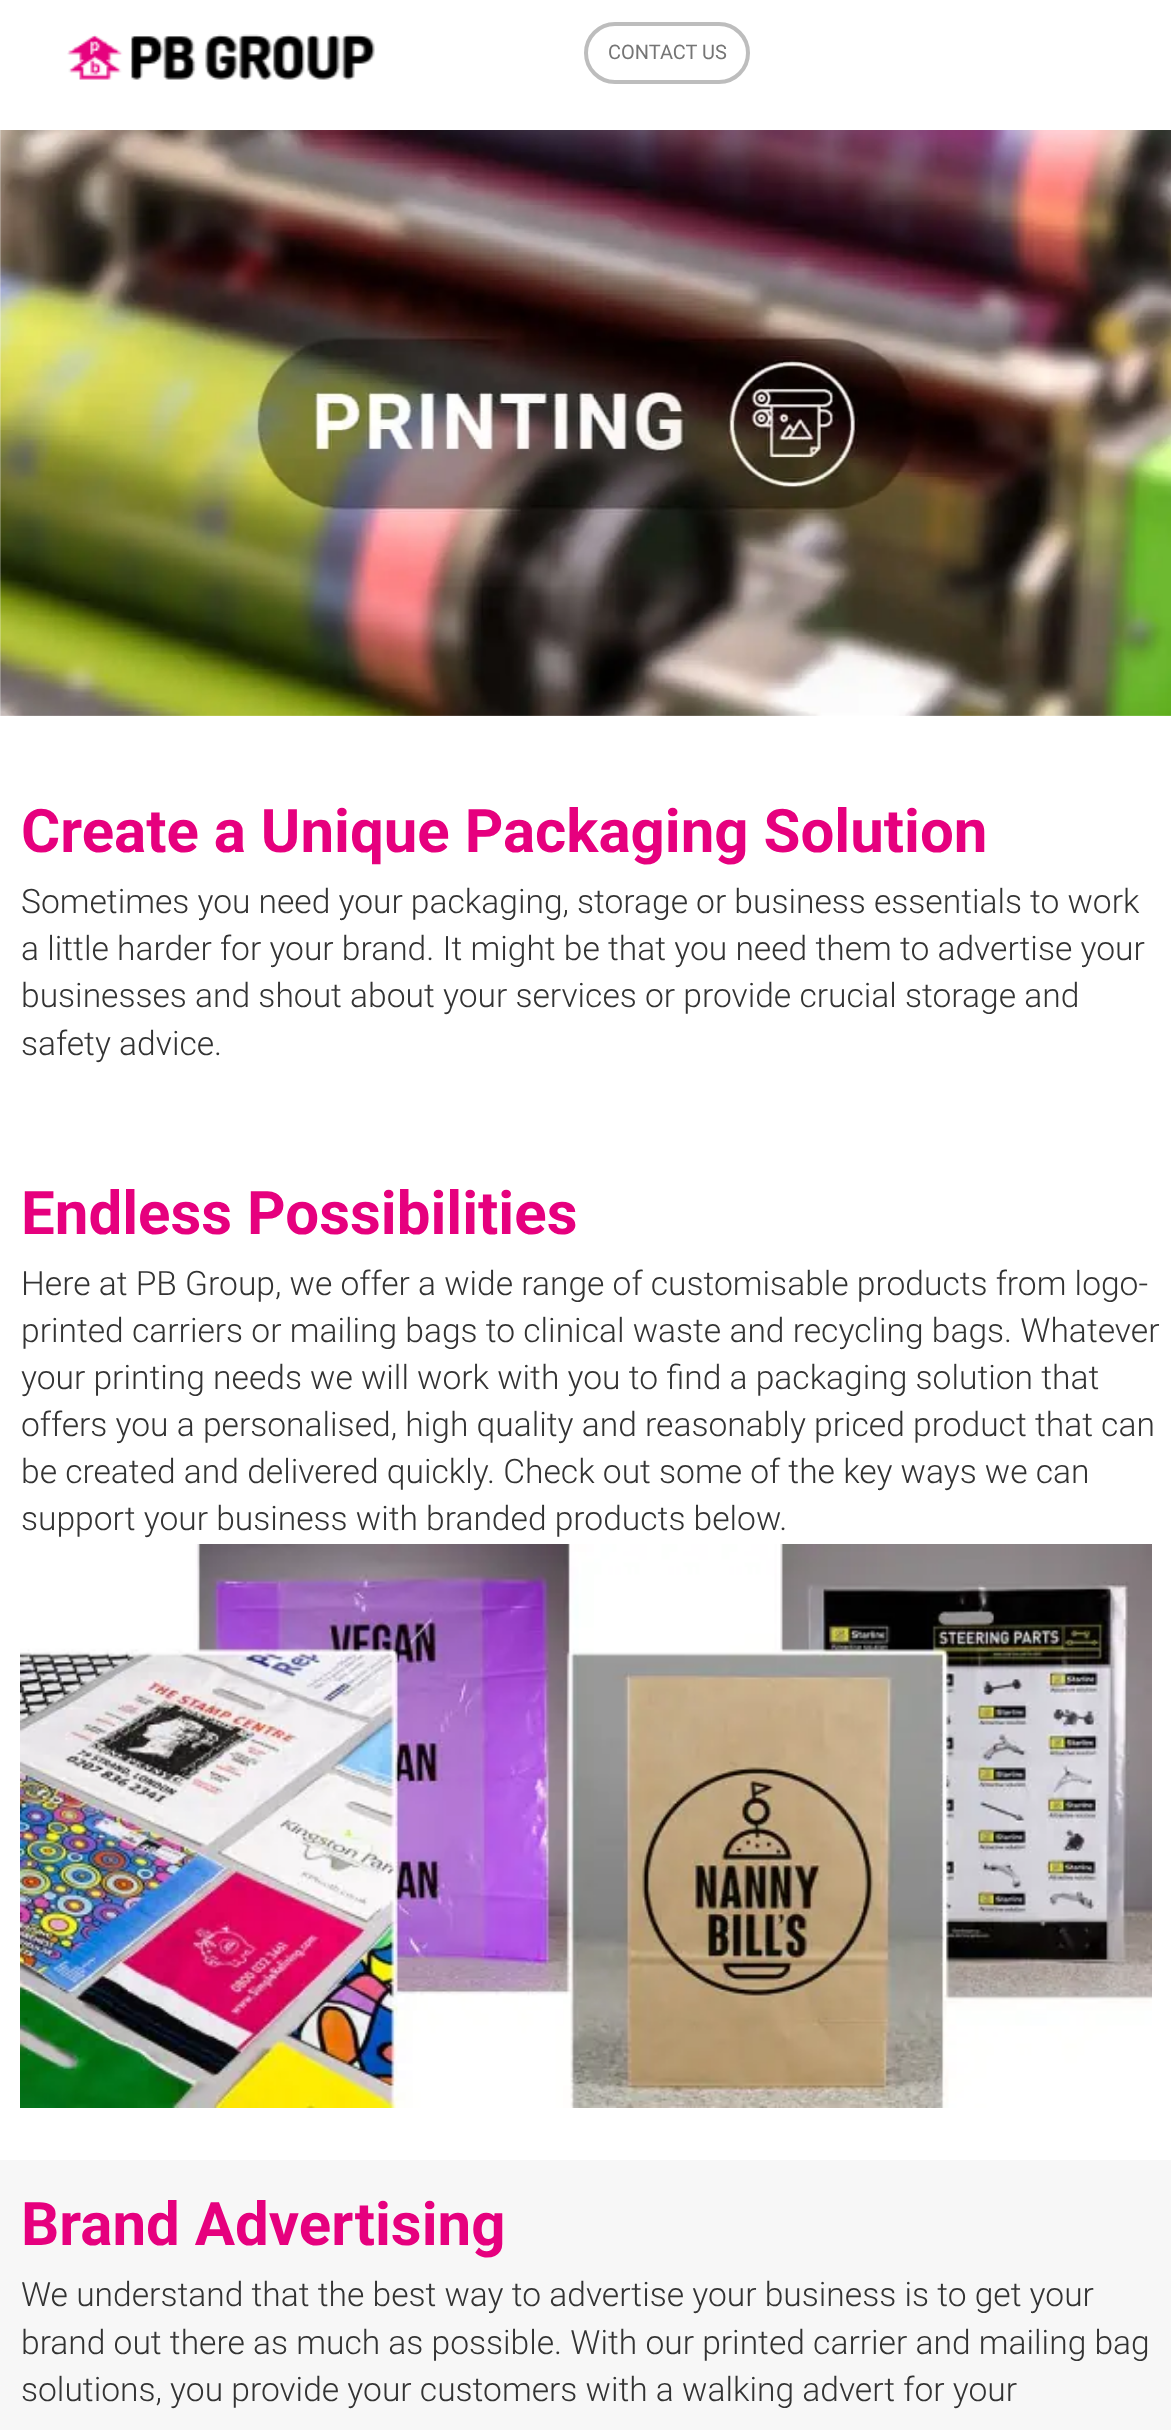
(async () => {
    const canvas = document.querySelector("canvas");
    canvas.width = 1171;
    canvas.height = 2430;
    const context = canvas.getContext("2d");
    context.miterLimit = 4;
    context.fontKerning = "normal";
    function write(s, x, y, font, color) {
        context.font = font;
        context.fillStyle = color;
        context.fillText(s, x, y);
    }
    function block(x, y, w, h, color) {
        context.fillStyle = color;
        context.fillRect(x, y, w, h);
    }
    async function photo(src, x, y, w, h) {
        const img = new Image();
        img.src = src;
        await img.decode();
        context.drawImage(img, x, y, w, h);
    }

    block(0, 0, 1171, 2430, "rgb(255, 255, 255)");
    await photo("media/1.png", 67, 34, 308, 46);
    context.beginPath();
    context.roundRect(586, 24, 162, 58, 29);
    context.strokeStyle = "rgb(189, 189, 189)";
    context.lineWidth = 4;
    context.stroke();
    write("CONTACT US", 608, 59, "20px Roboto", "rgb(117, 117, 117)");
    await photo("media/2.png", 0, 130, 1171, 586);
    write("Create a Unique Packaging Solution", 21, 852, "bold 60px Roboto", "rgb(230, 0, 126)");
    context.wordSpacing = "-0.1px";
    write("Sometimes you need your packaging, storage or business essentials to work", 21, 913, "300 33.6px Roboto", "rgb(51, 51, 51)");
    context.wordSpacing = "0px";
    write("a little harder for your brand. It might be that you need them to advertise your", 21, 960, "300 33.6px Roboto", "rgb(51, 51, 51)");
    write("businesses and shout about your services or provide crucial storage and", 21, 1007, "300 33.6px Roboto", "rgb(51, 51, 51)");
    write("safety advice.", 21, 1055, "300 33.6px Roboto", "rgb(51, 51, 51)");
    write("Endless Possibilities", 21, 1234, "bold 60px Roboto", "rgb(230, 0, 126)");
    write("Here at PB Group, we offer a wide range of customisable products from logo-", 21, 1295, "300 33.6px Roboto", "rgb(51, 51, 51)");
    write("printed carriers or mailing bags to clinical waste and recycling bags. Whatever", 21, 1342, "300 33.6px Roboto", "rgb(51, 51, 51)");
    write("your printing needs we will work with you to find a packaging solution that", 21, 1389, "300 33.6px Roboto", "rgb(51, 51, 51)");
    write("offers you a personalised, high quality and reasonably priced product that can", 21, 1436, "300 33.6px Roboto", "rgb(51, 51, 51)");
    write("be created and delivered quickly. Check out some of the key ways we can", 21, 1483, "300 33.6px Roboto", "rgb(51, 51, 51)");
    write("support your business with branded products below.", 21, 1530, "300 33.6px Roboto", "rgb(51, 51, 51)");
    await photo("media/3.png", 20, 1544, 1132, 564);
    block(0, 2160, 1171, 270, "rgb(247, 247, 247)");
    write("Brand Advertising", 21, 2245, "bold 60px Roboto", "rgb(230, 0, 126)");
    write("We understand that the best way to advertise your business is to get your", 21, 2306, "300 33.6px Roboto", "rgb(51, 51, 51)");
    write("brand out there as much as possible. With our printed carrier and mailing bag", 21, 2354, "300 33.6px Roboto", "rgb(51, 51, 51)");
    write("solutions, you provide your customers with a walking advert for your", 21, 2401, "300 33.6px Roboto", "rgb(51, 51, 51)");
})();
